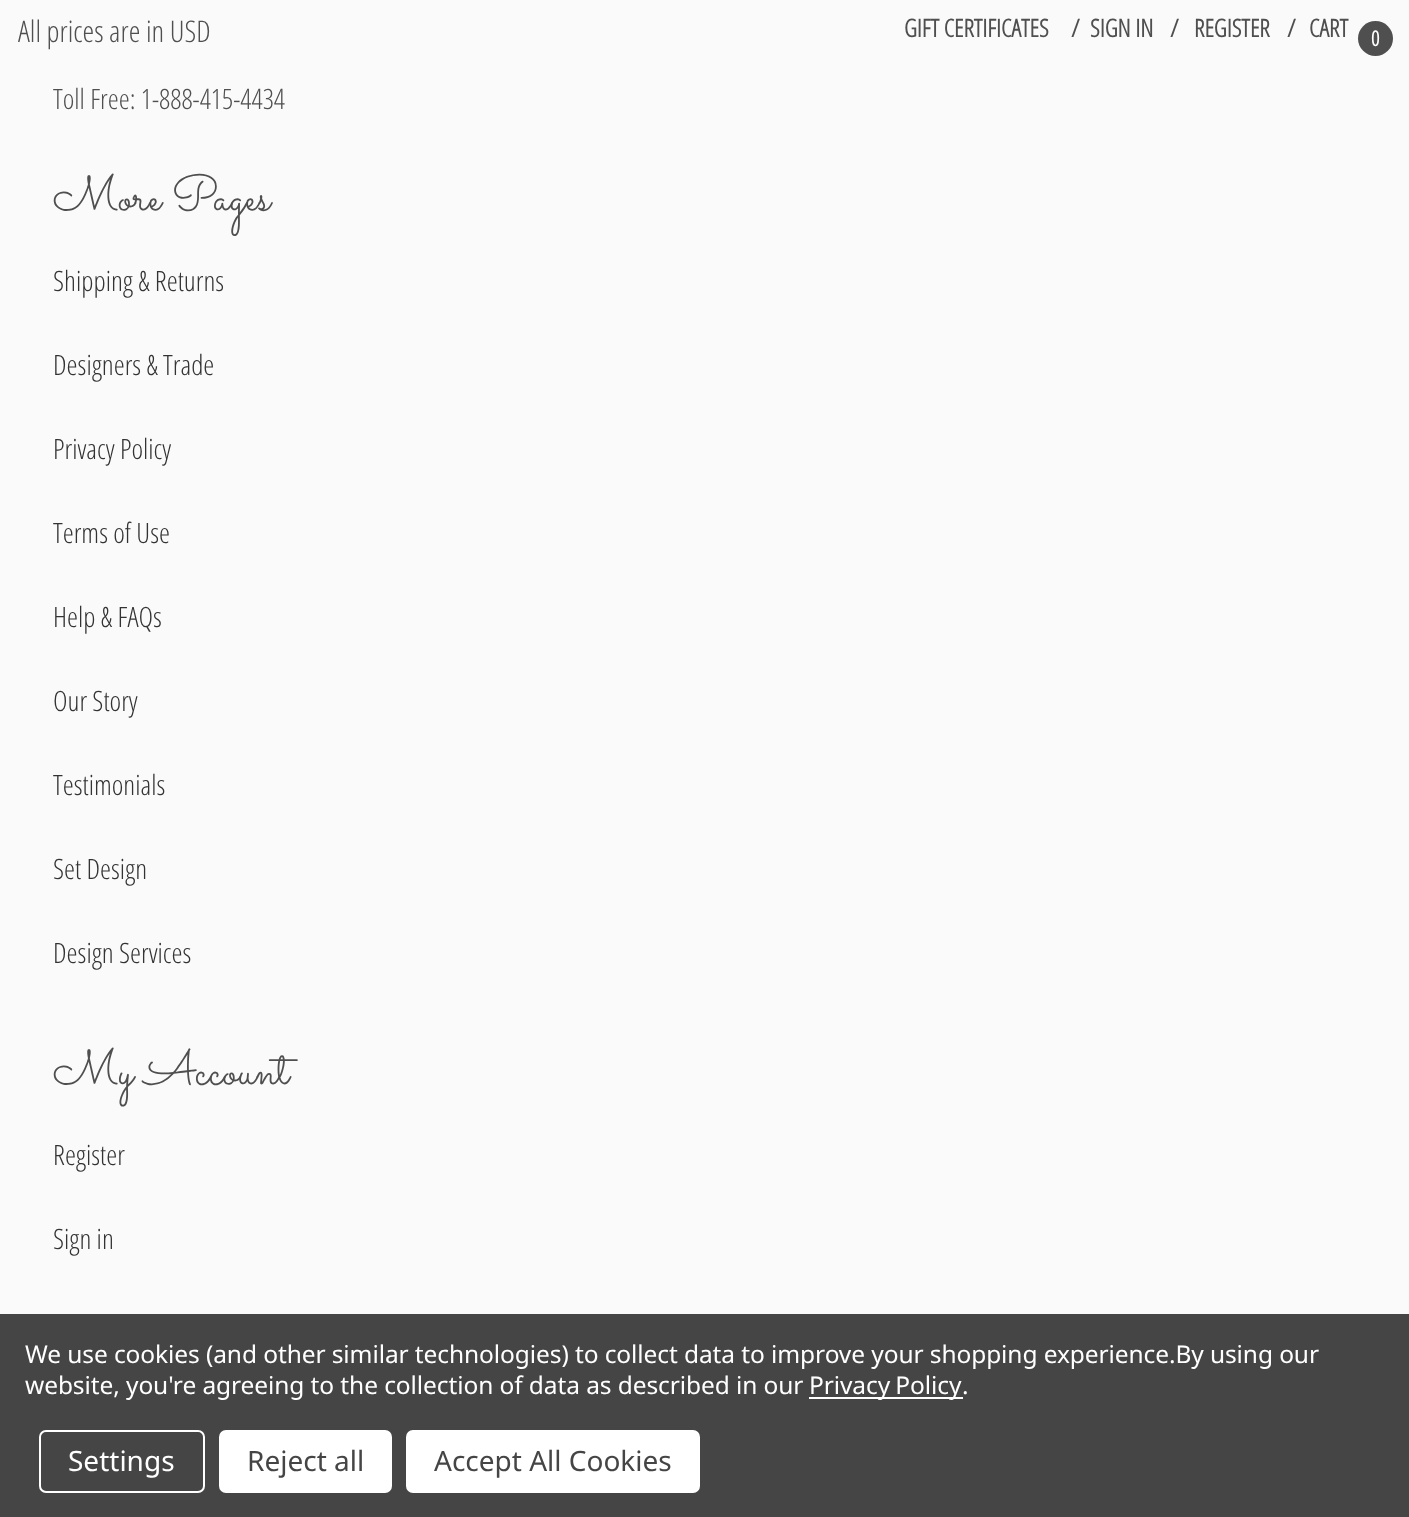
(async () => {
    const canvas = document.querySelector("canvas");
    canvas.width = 1409;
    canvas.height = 1517;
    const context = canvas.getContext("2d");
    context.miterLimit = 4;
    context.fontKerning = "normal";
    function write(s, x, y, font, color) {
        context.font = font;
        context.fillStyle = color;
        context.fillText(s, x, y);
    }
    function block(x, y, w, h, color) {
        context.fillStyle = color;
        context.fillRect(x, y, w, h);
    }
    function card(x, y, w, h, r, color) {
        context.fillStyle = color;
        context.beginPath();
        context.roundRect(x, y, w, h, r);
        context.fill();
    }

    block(0, 0, 1409, 1517, "rgb(250, 250, 250)");
    write("All prices are in USD", 18, 42, "300 29.75px Open Sans Condensed", "rgb(79, 79, 79)");
    write("GIFT CERTIFICATES", 904, 37, "bold 24.5px Open Sans Condensed", "rgb(79, 79, 79)");
    write("/", 1071, 37, "bold 24.5px Open Sans Condensed", "rgb(79, 79, 79)");
    write("SIGN IN", 1090, 37, "bold 24.5px Open Sans Condensed", "rgb(79, 79, 79)");
    write("/", 1170, 37, "bold 24.5px Open Sans Condensed", "rgb(79, 79, 79)");
    write("REGISTER", 1194, 37, "bold 24.5px Open Sans Condensed", "rgb(79, 79, 79)");
    write("/", 1287, 37, "bold 24.5px Open Sans Condensed", "rgb(79, 79, 79)");
    write("CART", 1309, 37, "bold 24.5px Open Sans Condensed", "rgb(79, 79, 79)");
    context.beginPath();
    context.arc(1375.5, 38.5, 17.5, 0, Math.PI * 2);
    context.fill();
    write("0", 1371, 46, "bold 21px Open Sans Condensed", "rgb(255, 255, 255)");
    write("Toll Free: 1-888-415-4434", 53, 109, "300 28px Open Sans Condensed", "rgb(79, 79, 79)");
    write("More Pages", 53, 210, "49px Sacramento", "rgb(79, 79, 79)");
    write("Shipping & Returns", 53, 291, "300 28px Open Sans Condensed", "rgb(51, 51, 51)");
    write("Designers & Trade", 53, 375, "300 28px Open Sans Condensed", "rgb(51, 51, 51)");
    write("Privacy Policy", 53, 459, "300 28px Open Sans Condensed", "rgb(51, 51, 51)");
    write("Terms of Use", 53, 543, "300 28px Open Sans Condensed", "rgb(51, 51, 51)");
    write("Help & FAQs", 53, 627, "300 28px Open Sans Condensed", "rgb(51, 51, 51)");
    write("Our Story", 53, 711, "300 28px Open Sans Condensed", "rgb(51, 51, 51)");
    write("Testimonials", 53, 795, "300 28px Open Sans Condensed", "rgb(51, 51, 51)");
    write("Set Design", 53, 879, "300 28px Open Sans Condensed", "rgb(51, 51, 51)");
    write("Design Services", 53, 963, "300 28px Open Sans Condensed", "rgb(51, 51, 51)");
    write("My Account", 53, 1084, "49px Sacramento", "rgb(79, 79, 79)");
    write("Register", 53, 1165, "300 28px Open Sans Condensed", "rgb(51, 51, 51)");
    write("Sign in", 53, 1249, "300 28px Open Sans Condensed", "rgb(51, 51, 51)");
    block(0, 1314, 1409, 203, "rgb(69, 69, 69)");
    context.letterSpacing = "-0.09px";
    write("We use cookies (and other similar technologies) to collect data to improve your shopping experience.By using our", 25, 1363, "24.5px Noto Sans", "rgb(255, 255, 255)");
    write("website, you're agreeing to the collection of data as described in our", 25, 1394, "24.5px Noto Sans", "rgb(255, 255, 255)");
    block(809, 1397, 154, 2, "rgb(255, 255, 255)");
    context.wordSpacing = "-1px";
    write("Privacy Policy", 809, 1394, "24.5px Noto Sans", "rgb(255, 255, 255)");
    context.wordSpacing = "0px";
    write(".", 962, 1394, "24.5px Noto Sans", "rgb(255, 255, 255)");
    context.beginPath();
    context.roundRect(40, 1431, 164, 61, 6);
    context.strokeStyle = "rgb(255, 255, 255)";
    context.lineWidth = 2;
    context.stroke();
    context.letterSpacing = "0px";
    write("Settings", 68, 1471, "28px Noto Sans", "rgb(255, 255, 255)");
    card(219, 1430, 173, 63, 7, "rgb(255, 255, 255)");
    write("Reject all", 247, 1471, "28px Noto Sans", "rgb(69, 69, 69)");
    card(406, 1430, 294, 63, 7, "rgb(255, 255, 255)");
    write("Accept All Cookies", 434, 1471, "28px Noto Sans", "rgb(69, 69, 69)");
})();
